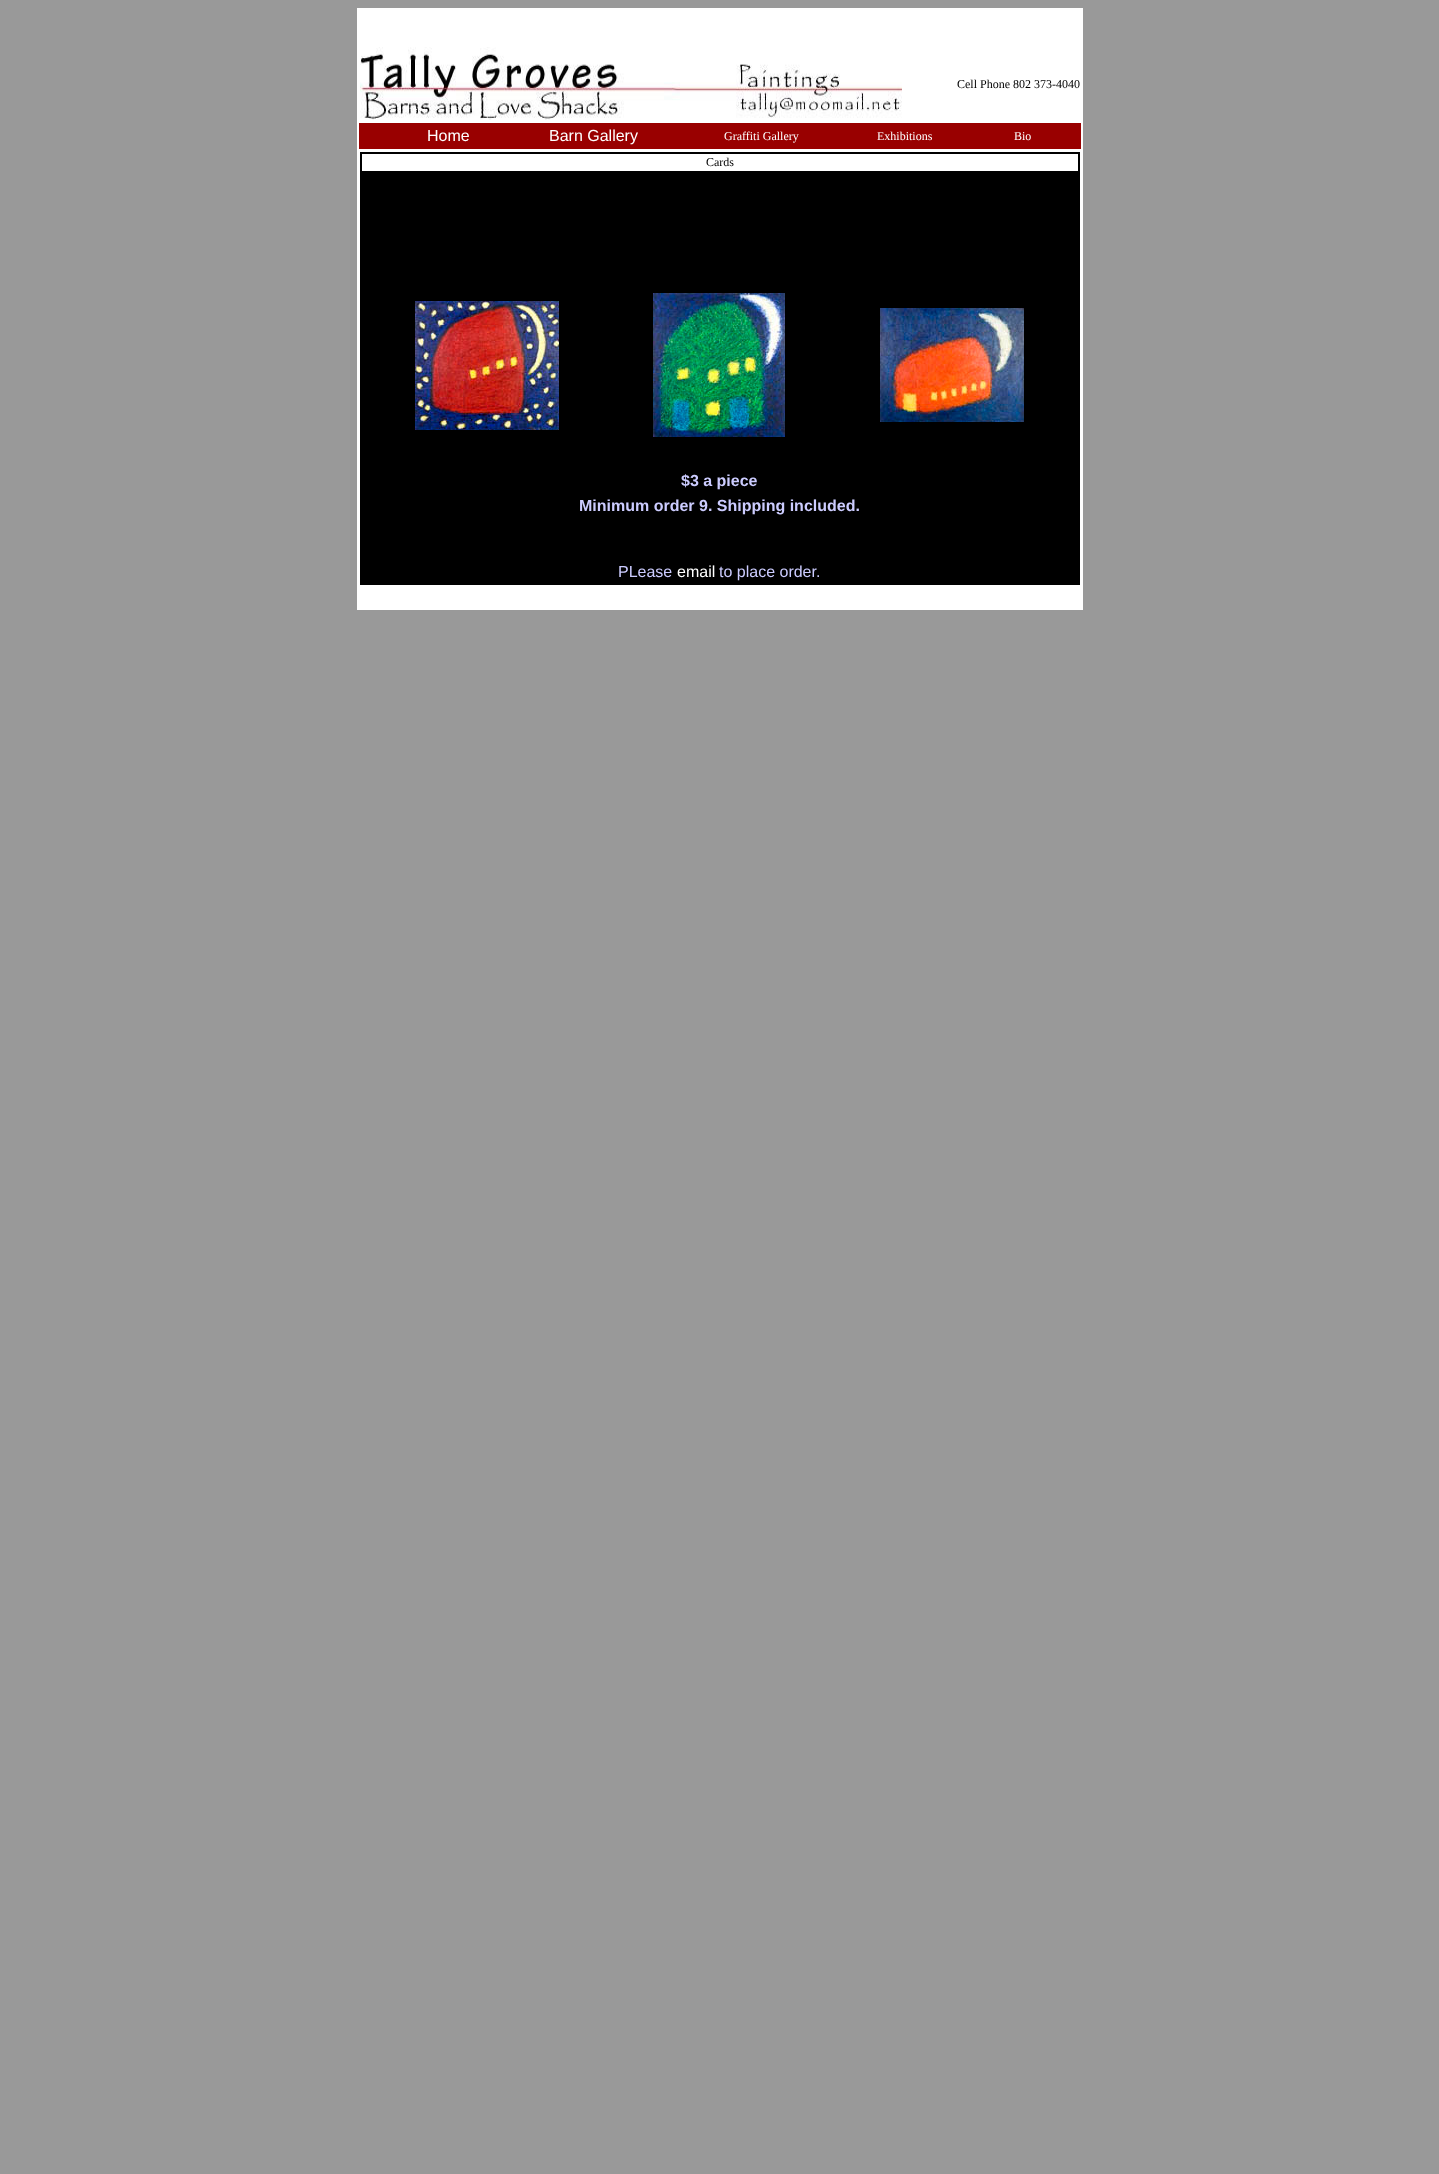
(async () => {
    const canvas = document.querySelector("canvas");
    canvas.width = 1439;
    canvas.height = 2174;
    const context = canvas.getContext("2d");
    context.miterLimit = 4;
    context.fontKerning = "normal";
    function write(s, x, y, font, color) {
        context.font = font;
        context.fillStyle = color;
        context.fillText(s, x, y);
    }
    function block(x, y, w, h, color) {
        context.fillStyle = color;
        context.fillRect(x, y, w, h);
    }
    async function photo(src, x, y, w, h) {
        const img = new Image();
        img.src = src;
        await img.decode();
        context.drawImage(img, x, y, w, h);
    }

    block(0, 0, 1439, 2174, "rgb(153, 153, 153)");
    block(357, 8, 726, 602, "rgb(255, 255, 255)");
    await photo("media/1.png", 360, 47, 542, 73);
    write("Cell Phone 802 373-4040", 957, 88, "12px Liberation Serif", "rgb(0, 0, 0)");
    block(359, 123, 722, 26, "rgb(153, 0, 0)");
    write("Home", 427, 141, "16px Liberation Sans", "rgb(255, 255, 255)");
    write("Barn Gallery", 549, 141, "16px Liberation Sans", "rgb(255, 255, 255)");
    write("Graffiti Gallery", 724, 140, "12px Liberation Serif", "rgb(255, 255, 255)");
    write("Exhibitions", 877, 140, "12px Liberation Serif", "rgb(255, 255, 255)");
    write("Bio", 1014, 140, "12px Liberation Serif", "rgb(255, 255, 255)");
    block(360, 152, 720, 433, "rgb(0, 0, 0)");
    block(362, 154, 716, 17, "rgb(255, 255, 255)");
    write("Cards", 706, 166, "12px Liberation Serif", "rgb(0, 0, 0)");
    await photo("media/2.png", 415, 301, 144, 129);
    await photo("media/3.png", 653, 293, 132, 144);
    await photo("media/4.png", 880, 308, 144, 114);
    write("$3 a piece", 681, 486, "bold 16px Liberation Sans", "rgb(204, 204, 255)");
    write("Minimum order 9. Shipping included.", 579, 511, "bold 16px Liberation Sans", "rgb(204, 204, 255)");
    write("PLease", 618, 577, "16px Liberation Sans", "rgb(204, 204, 255)");
    write("email", 677, 577, "16px Liberation Sans", "rgb(255, 255, 255)");
    write("to place order.", 719, 577, "16px Liberation Sans", "rgb(204, 204, 255)");
})();
